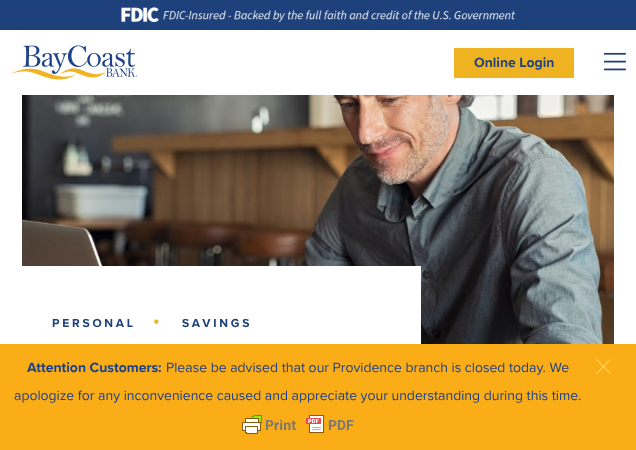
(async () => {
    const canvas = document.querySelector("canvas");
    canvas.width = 636;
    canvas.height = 450;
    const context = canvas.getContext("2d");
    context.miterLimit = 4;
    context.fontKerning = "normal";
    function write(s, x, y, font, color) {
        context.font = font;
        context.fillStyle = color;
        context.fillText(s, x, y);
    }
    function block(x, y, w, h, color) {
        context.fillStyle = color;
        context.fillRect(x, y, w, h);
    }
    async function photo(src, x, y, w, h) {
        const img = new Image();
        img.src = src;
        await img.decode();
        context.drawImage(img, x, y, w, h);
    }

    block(0, 0, 636, 450, "rgb(255, 255, 255)");
    block(0, 0, 636, 30, "rgb(30, 65, 124)");
    await photo("media/1.png", 121, 7, 395, 16);
    await photo("media/2.png", 10, 45, 127, 35);
    block(454, 48, 120, 30, "rgb(239, 179, 34)");
    write("Online Login", 474, 67, "bold 14px Proxima Nova", "rgb(30, 65, 124)");
    await photo("media/3.png", 604, 52, 22, 19);
    await photo("media/4.png", 22, 95, 592, 249);
    block(22, 266, 399, 78, "rgb(255, 255, 255)");
    context.letterSpacing = "2.75px";
    write("PERSONAL", 52, 327, "bold 12px Proxima Nova", "rgb(30, 65, 124)");
    context.letterSpacing = "6px";
    write("·", 153, 328, "bold 26px Proxima Nova", "rgb(239, 179, 34)");
    context.letterSpacing = "2.75px";
    write("SAVINGS", 182, 327, "bold 12px Proxima Nova", "rgb(30, 65, 124)");
    block(0, 344, 636, 106, "rgb(251, 173, 24)");
    context.letterSpacing = "0px";
    write("Attention Customers:", 27, 372, "bold 14px Proxima Nova", "rgb(24, 66, 143)");
    write("Please be advised that our Providence branch is closed today. We", 166, 372, "14px Proxima Nova", "rgb(24, 66, 143)");
    write("apologize for any inconvenience caused and appreciate your understanding during this time.", 14, 400, "14px Proxima Nova", "rgb(24, 66, 143)");
    await photo("media/5.png", 242, 415, 112, 19);
    await photo("media/6.png", 596, 359, 15, 15);
})();
